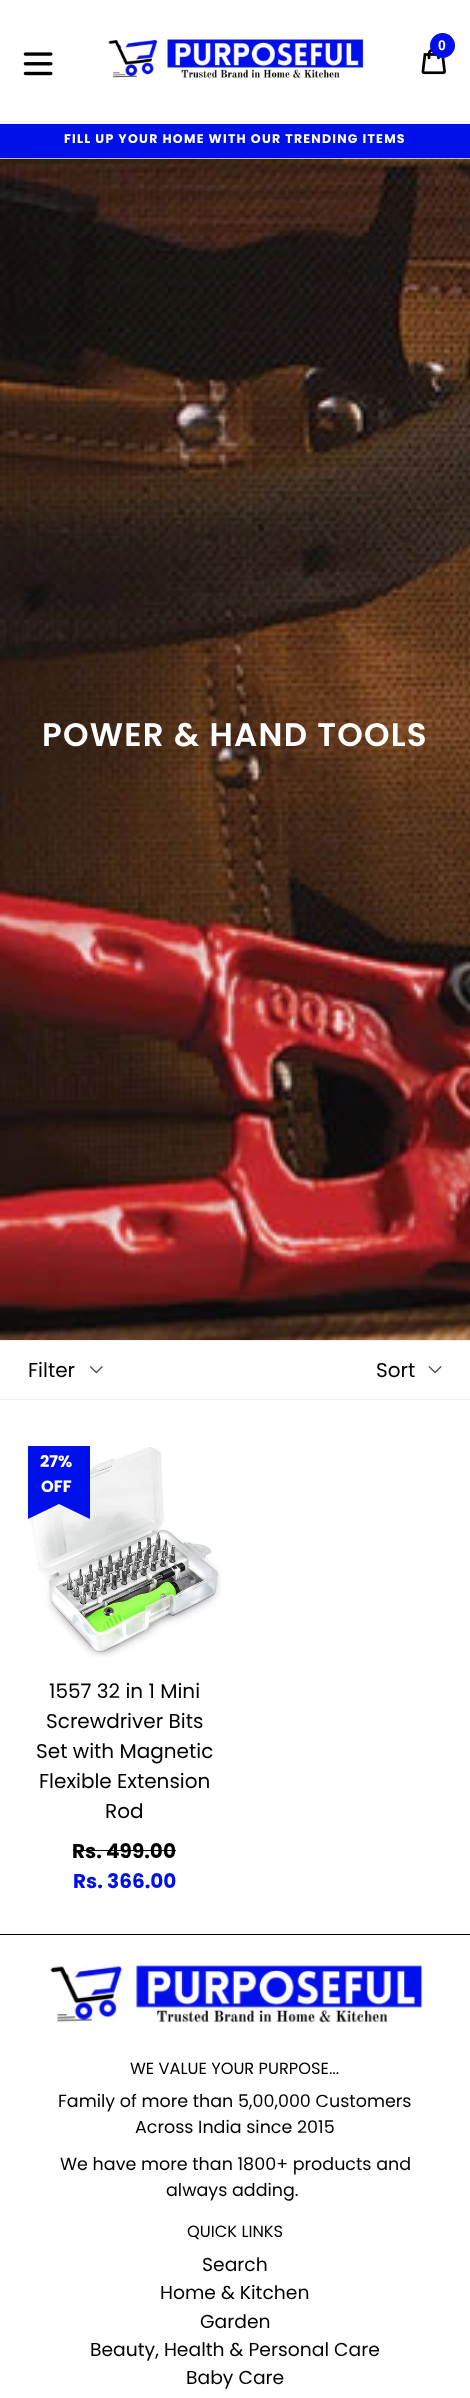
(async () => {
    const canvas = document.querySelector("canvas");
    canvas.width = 470;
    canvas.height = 2398;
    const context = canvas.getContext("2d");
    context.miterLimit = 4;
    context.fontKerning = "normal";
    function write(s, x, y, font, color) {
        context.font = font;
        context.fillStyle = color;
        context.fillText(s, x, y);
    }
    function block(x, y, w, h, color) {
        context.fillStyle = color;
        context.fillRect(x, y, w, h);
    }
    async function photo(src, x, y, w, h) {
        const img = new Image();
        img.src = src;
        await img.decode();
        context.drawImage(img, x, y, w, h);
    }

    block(0, 0, 470, 2398, "rgb(255, 255, 255)");
    block(0, 121, 470, 1, "rgb(240, 240, 240)");
    await photo("media/1.png", 107, 37, 257, 42);
    await photo("media/2.png", 421, 49, 25, 26);
    context.fillStyle = "rgb(0, 16, 235)";
    context.beginPath();
    context.arc(442.5, 45.5, 12.5, 0, Math.PI * 2);
    context.fill();
    context.letterSpacing = "1.25px";
    write("0", 438, 50, "bold 14px Liberation Sans", "rgb(255, 255, 255)");
    await photo("media/3.png", 23, 52, 30, 24);
    block(0, 123, 470, 1, "rgb(240, 240, 240)");
    block(0, 124, 470, 34, "rgb(0, 16, 235)");
    block(0, 158, 470, 1, "rgb(240, 240, 240)");
    write("FILL UP YOUR HOME WITH OUR TRENDING ITEMS", 64, 143, "bold 12.5px Poppins", "rgb(255, 255, 255)");
    await photo("media/4.png", 0, 158, 470, 1182);
    write("POWER & HAND TOOLS", 42, 746, "600 32.5px Poppins", "rgb(255, 255, 255)");
    block(0, 1340, 470, 1, "rgb(240, 240, 240)");
    block(0, 1399, 470, 1, "rgb(240, 240, 240)");
    await photo("media/5.png", 89, 1366, 14, 8);
    context.letterSpacing = "0px";
    write("Filter", 28, 1377, "20px Poppins", "rgb(0, 0, 0)");
    await photo("media/6.png", 428, 1366, 14, 8);
    write("Sort", 376, 1377, "20px Poppins", "rgb(0, 0, 0)");
    await photo("media/7.png", 27, 1447, 194, 211);
    context.fillStyle = "rgb(0, 16, 235)";
    context.beginPath();
    context.moveTo(90, 1446);
    context.lineTo(90, 1519);
    context.lineTo(59, 1504);
    context.closePath();
    context.fill();
    context.beginPath();
    context.moveTo(28, 1519);
    context.lineTo(28, 1446);
    context.lineTo(59, 1504);
    context.closePath();
    context.fill();
    block(28, 1446, 62, 58, "rgb(0, 16, 235)");
    write("27%", 40, 1467, "bold 16.25px Poppins", "rgb(255, 255, 255)");
    write("OFF", 41, 1492, "bold 16.25px Poppins", "rgb(255, 255, 255)");
    write("1557 32 in 1 Mini", 49, 1698, "20px Poppins", "rgb(0, 0, 0)");
    write("Screwdriver Bits", 46, 1728, "20px Poppins", "rgb(0, 0, 0)");
    write("Set with Magnetic", 36, 1758, "20px Poppins", "rgb(0, 0, 0)");
    write("Flexible Extension", 39, 1788, "20px Poppins", "rgb(0, 0, 0)");
    write("Rod", 105, 1818, "20px Poppins", "rgb(0, 0, 0)");
    write("Rs. 499.00", 72, 1858, "bold 20px Poppins", "rgb(0, 0, 0)");
    block(73, 1850, 103, 1, "rgb(0, 0, 0)");
    write("Rs. 366.00", 73, 1888, "bold 20px Poppins", "rgb(0, 16, 235)");
    block(0, 1934, 470, 1, "rgb(0, 0, 0)");
    await photo("media/8.png", 49, 1962, 374, 61);
    write("WE VALUE YOUR PURPOSE...", 130, 2074, "16.25px Poppins", "rgb(0, 0, 0)");
    write("Family of more than 5,00,000 Customers", 58, 2107, "17.5px Poppins", "rgb(0, 0, 0)");
    write("Across India since 2015", 135, 2133, "17.5px Poppins", "rgb(0, 0, 0)");
    write("We have more than 1800+ products and", 60, 2170, "17.5px Poppins", "rgb(0, 0, 0)");
    write("always adding.", 166, 2196, "17.5px Poppins", "rgb(0, 0, 0)");
    write("QUICK LINKS", 187, 2237, "16.25px Poppins", "rgb(0, 0, 0)");
    write("Search", 202, 2271, "18.75px Poppins", "rgb(0, 0, 0)");
    write("Home & Kitchen", 160, 2299, "18.75px Poppins", "rgb(0, 0, 0)");
    write("Garden", 200, 2328, "18.75px Poppins", "rgb(0, 0, 0)");
    write("Beauty, Health & Personal Care", 90, 2356, "18.75px Poppins", "rgb(0, 0, 0)");
    write("Baby Care", 186, 2384, "18.75px Poppins", "rgb(0, 0, 0)");
})();
